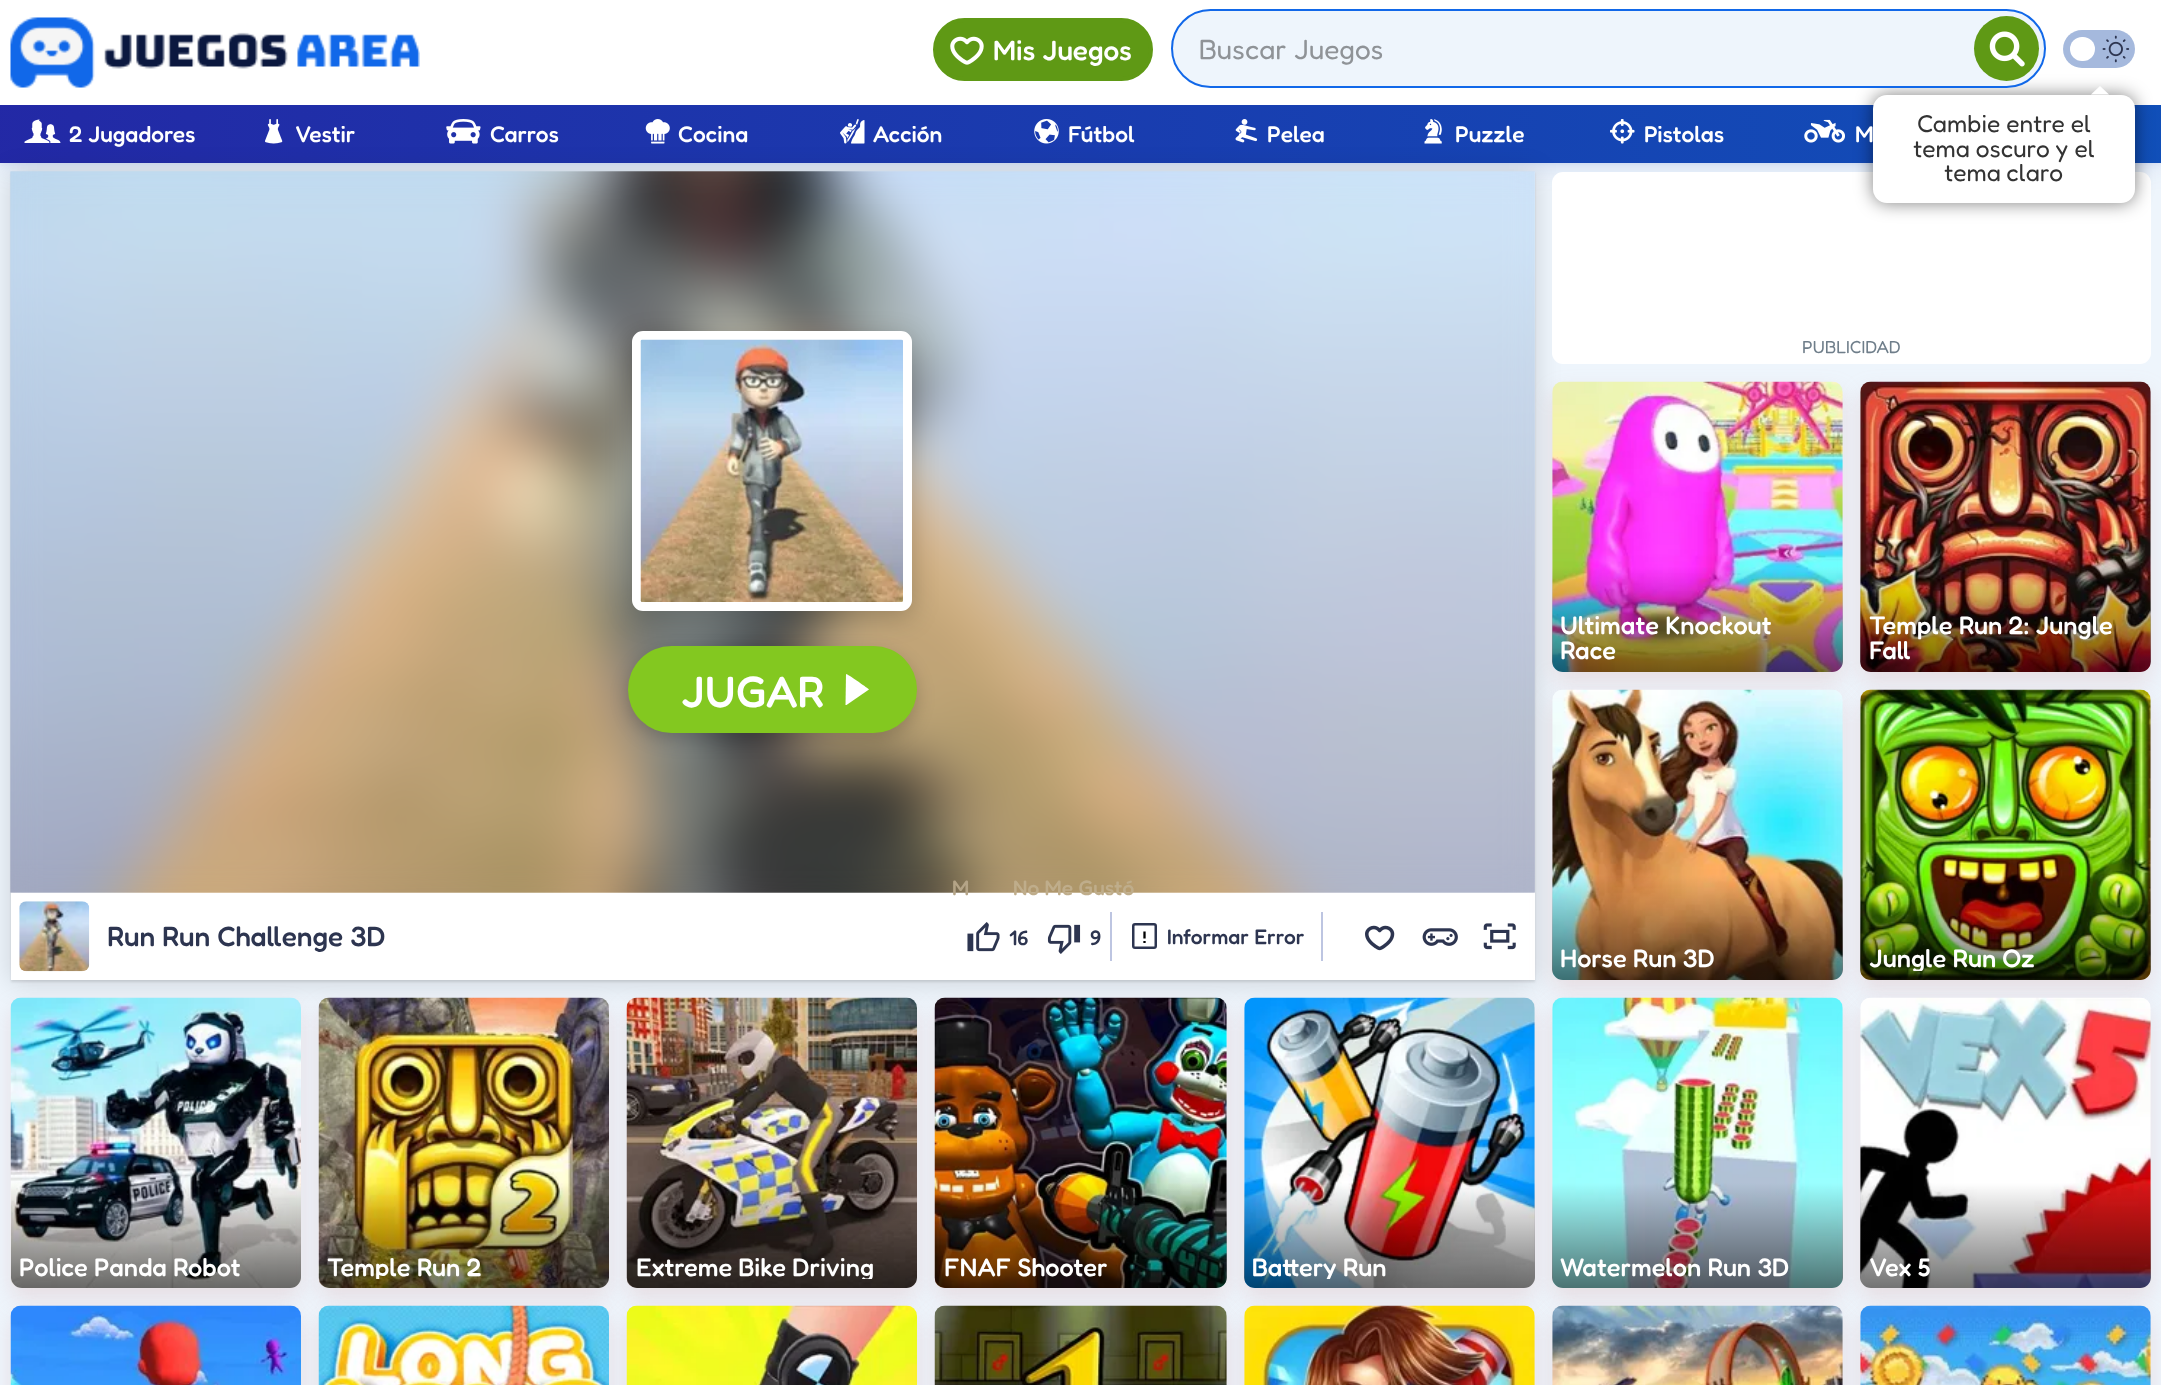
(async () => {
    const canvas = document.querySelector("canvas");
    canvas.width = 2161;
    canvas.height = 1385;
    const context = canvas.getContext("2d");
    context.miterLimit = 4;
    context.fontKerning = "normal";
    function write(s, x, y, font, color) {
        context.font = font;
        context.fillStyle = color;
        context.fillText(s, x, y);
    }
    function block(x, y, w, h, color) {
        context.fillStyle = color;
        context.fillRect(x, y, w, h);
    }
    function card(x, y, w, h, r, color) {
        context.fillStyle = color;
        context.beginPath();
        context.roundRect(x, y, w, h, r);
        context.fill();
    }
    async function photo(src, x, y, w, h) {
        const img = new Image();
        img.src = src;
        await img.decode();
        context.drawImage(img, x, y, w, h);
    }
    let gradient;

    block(0, 0, 2161, 1385, "rgb(238, 245, 252)");
    context.fillStyle = "rgba(25, 61, 169, 0.05)";
    context.filter = "blur(2px)";
    context.beginPath();
    context.rect(0, 2, 2161, 163);
    context.fill();
    context.filter = "none";
    context.fillStyle = "rgba(25, 61, 169, 0.15)";
    context.filter = "blur(13px)";
    context.beginPath();
    context.rect(0, 2, 2161, 163);
    context.fill();
    context.filter = "none";
    block(0, 0, 2161, 105, "rgb(255, 255, 255)");
    await photo("media/1.png", 10, 17, 410, 71);
    context.fillStyle = "rgb(95, 153, 21)";
    context.beginPath();
    context.roundRect(935, 20, 216, 59, 29.5);
    context.fill();
    context.strokeStyle = "rgb(95, 153, 21)";
    context.lineWidth = 4;
    context.stroke();
    await photo("media/2.png", 950, 36, 34, 29);
    write("Mis Juegos", 993, 60, "300 28px Fredoka", "rgb(255, 255, 255)");
    card(2063, 30, 72, 38, 19, "rgb(165, 185, 221)");
    gradient = context.createLinearGradient(-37, 125, 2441, 145);
    gradient.addColorStop(0, "rgb(35, 40, 165)");
    gradient.addColorStop(1, "rgb(14, 84, 187)");
    context.fillStyle = gradient;
    context.fillRect(0, 105, 2161, 58);
    context.fillStyle = "rgba(0, 0, 0, 0.15)";
    context.filter = "blur(13px)";
    context.beginPath();
    context.rect(11, 173, 1524, 809);
    context.fill();
    context.filter = "none";
    context.fillStyle = "rgba(0, 0, 0, 0.1)";
    context.filter = "blur(1px)";
    context.beginPath();
    context.rect(11, 173, 1524, 809);
    context.fill();
    context.filter = "none";
    block(11, 172, 1524, 808, "rgb(255, 255, 255)");
    context.fillStyle = "rgba(211, 152, 152, 0.24)";
    context.filter = "blur(10.5px)";
    context.beginPath();
    context.roundRect(1552, 392, 291, 291, 11);
    context.fill();
    context.filter = "none";
    await photo("media/15.png", 1552, 381, 291, 291);
    gradient = context.createLinearGradient(1698, 567, 1698, 672);
    gradient.addColorStop(0, "rgba(0, 0, 0, 0)");
    gradient.addColorStop(1, "rgba(0, 0, 0, 0.55)");
    context.fillStyle = gradient;
    context.beginPath();
    context.roundRect(1552, 567, 291, 105, [0, 0, 11, 11]);
    context.fill();
    context.fillStyle = "rgba(211, 152, 152, 0.24)";
    context.filter = "blur(10.5px)";
    context.beginPath();
    context.roundRect(1860, 392, 291, 291, 11);
    context.fill();
    context.filter = "none";
    card(1552, 172, 599, 192, 11, "rgb(255, 255, 255)");
    context.fillStyle = "rgba(0, 0, 0, 0.5)";
    context.filter = "blur(9px)";
    context.beginPath();
    context.roundRect(1873, 95, 262, 108, 14);
    context.fill();
    context.filter = "none";
    context.fillStyle = "rgb(238, 245, 252)";
    context.beginPath();
    context.roundRect(1172, 10, 873, 77, 38.5);
    context.fill();
    context.strokeStyle = "rgb(17, 104, 233)";
    context.lineWidth = 2;
    context.stroke();
    write("Buscar Juegos", 1199, 59, "300 28px 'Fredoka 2'", "rgb(143, 147, 151)");
    context.fillStyle = "rgb(95, 153, 21)";
    context.beginPath();
    context.arc(2006.5, 48.5, 32.5, 0, Math.PI * 2);
    context.fill();
    await photo("media/3.png", 1989, 31, 36, 36);
    card(2070, 37, 25, 24, 12, "rgb(255, 255, 255)");
    await photo("media/4.png", 2102, 35, 28, 28);
    card(1873, 95, 262, 108, 14, "rgb(255, 255, 255)");
    context.beginPath();
    context.moveTo(2109, 94.5);
    context.lineTo(2091, 94.5);
    context.lineTo(2100, 86);
    context.closePath();
    context.fill();
    write("Cambie entre el", 1917, 132, "300 24.5px 'Fredoka 2'", "rgb(51, 51, 51)");
    write("tema oscuro y el", 1913, 157, "300 24.5px 'Fredoka 2'", "rgb(51, 51, 51)");
    write("tema claro", 1944, 181, "300 24.5px 'Fredoka 2'", "rgb(51, 51, 51)");
    await photo("media/5.png", 24, 119, 37, 24);
    write("2 Jugadores", 69, 142, "300 22.75px Fredoka", "rgb(255, 255, 255)");
    await photo("media/6.png", 265, 119, 18, 25);
    write("Vestir", 295, 142, "300 22.75px Fredoka", "rgb(255, 255, 255)");
    await photo("media/7.png", 446, 119, 35, 25);
    write("Carros", 490, 142, "300 22.75px Fredoka", "rgb(255, 255, 255)");
    await photo("media/8.png", 645, 119, 25, 25);
    write("Cocina", 678, 142, "300 22.75px Fredoka", "rgb(255, 255, 255)");
    await photo("media/9.png", 840, 119, 25, 25);
    write("Acción", 873, 142, "300 22.75px Fredoka", "rgb(255, 255, 255)");
    await photo("media/10.png", 1034, 119, 25, 25);
    write("Fútbol", 1068, 142, "300 22.75px Fredoka", "rgb(255, 255, 255)");
    await photo("media/11.png", 1235, 119, 23, 24);
    write("Pelea", 1267, 142, "300 22.75px Fredoka", "rgb(255, 255, 255)");
    await photo("media/12.png", 1424, 119, 18, 25);
    write("Puzzle", 1455, 142, "300 22.75px Fredoka", "rgb(255, 255, 255)");
    await photo("media/13.png", 1610, 119, 25, 25);
    write("Pistolas", 1644, 142, "300 22.75px Fredoka", "rgb(255, 255, 255)");
    await photo("media/14.png", 1804, 119, 41, 24);
    write("M", 1855, 142, "300 22.75px Fredoka", "rgb(255, 255, 255)");
    write("PUBLICIDAD", 1802, 353, "300 17.5px 'Fredoka 2'", "rgb(111, 126, 138)");
    write("Ultimate Knockout", 1560, 634, "300 25.4px Fredoka", "rgb(255, 255, 255)");
    write("Race", 1560, 659, "300 25.4px Fredoka", "rgb(255, 255, 255)");
    await photo("media/16.png", 1860, 381, 291, 291);
    gradient = context.createLinearGradient(2006, 567, 2006, 672);
    gradient.addColorStop(0, "rgba(0, 0, 0, 0)");
    gradient.addColorStop(1, "rgba(0, 0, 0, 0.55)");
    context.fillStyle = gradient;
    context.beginPath();
    context.roundRect(1860, 567, 291, 105, [0, 0, 11, 11]);
    context.fill();
    write("Temple Run 2: Jungle", 1869, 634, "300 25.4px Fredoka", "rgb(255, 255, 255)");
    write("Fall", 1869, 659, "300 25.4px Fredoka", "rgb(255, 255, 255)");
    context.fillStyle = "rgba(211, 152, 152, 0.24)";
    context.filter = "blur(10.5px)";
    context.beginPath();
    context.roundRect(1552, 700, 291, 291, 11);
    context.fill();
    context.filter = "none";
    await photo("media/17.png", 10, 171, 1525, 722);
    await photo("media/18.png", 10, 171, 1525, 722);
    context.fillStyle = "rgba(0, 0, 0, 0.2)";
    context.filter = "blur(13px)";
    context.beginPath();
    context.roundRect(632, 338, 280, 280, 11);
    context.fill();
    context.filter = "none";
    context.beginPath();
    context.roundRect(636.5, 335.5, 271, 271, 6.5);
    context.strokeStyle = "rgb(255, 255, 255)";
    context.lineWidth = 9;
    context.stroke();
    await photo("media/19.png", 640, 339, 263, 263);
    context.filter = "blur(9px)";
    context.beginPath();
    context.roundRect(628, 653, 289, 87, 43.5);
    context.fill();
    context.filter = "none";
    card(628, 646, 289, 87, 43.5, "rgb(131, 200, 32)");
    write("JUGAR", 681, 707, "300 44px Fredoka", "rgb(255, 255, 255)");
    context.beginPath();
    context.moveTo(868.5, 689);
    context.bezierCurveTo(866, 687, 847, 673.5, 846, 674);
    context.lineTo(845.5, 705);
    context.lineTo(846, 705);
    context.lineTo(846.5, 705);
    context.lineTo(869, 689.5);
    context.closePath();
    context.fill();
    await photo("media/20.png", 19, 901, 71, 71);
    write("Run Run Challenge 3D", 107, 946, "300 28px Fredoka", "rgb(45, 53, 80)");
    block(1110, 912, 2, 49, "rgb(189, 197, 225)");
    write("M", 952, 895, "300 21px Fredoka", "rgb(180, 164, 135)");
    await photo("media/21.png", 967, 922, 33, 30);
    write("16", 1009, 945, "300 21px Fredoka", "rgb(45, 53, 80)");
    write("No Me Gustó", 1013, 895, "300 21px Fredoka", "rgb(191, 173, 139)");
    await photo("media/22.png", 1047, 924, 34, 30);
    write("9", 1090, 945, "300 21px Fredoka", "rgb(45, 53, 80)");
    block(1321, 912, 2, 49, "rgb(189, 197, 225)");
    context.beginPath();
    context.roundRect(1133.25, 924.25, 22.5, 23.5, 1.75);
    context.strokeStyle = "rgb(45, 53, 80)";
    context.lineWidth = 2.5;
    context.stroke();
    context.beginPath();
    context.moveTo(1144.5, 931.5);
    context.lineTo(1144.5, 938.5);
    context.moveTo(1144.5, 941);
    context.lineTo(1144.5, 943);
    context.strokeStyle = "rgb(0, 0, 0)";
    context.lineWidth = 2.3;
    context.stroke();
    write("Informar Error", 1167, 944, "300 21px Fredoka", "rgb(45, 53, 80)");
    await photo("media/23.png", 1365, 925, 30, 26);
    await photo("media/24.png", 1422, 928, 36, 18);
    await photo("media/25.png", 1483, 923, 33, 27);
    await photo("media/26.png", 1552, 689, 291, 291);
    gradient = context.createLinearGradient(1698, 875, 1698, 980);
    gradient.addColorStop(0, "rgba(0, 0, 0, 0)");
    gradient.addColorStop(1, "rgba(0, 0, 0, 0.55)");
    context.fillStyle = gradient;
    context.beginPath();
    context.roundRect(1552, 875, 291, 105, [0, 0, 11, 11]);
    context.fill();
    write("Horse Run 3D", 1560, 967, "300 25.4px Fredoka", "rgb(255, 255, 255)");
    context.fillStyle = "rgba(211, 152, 152, 0.24)";
    context.filter = "blur(10.5px)";
    context.beginPath();
    context.roundRect(1860, 700, 291, 291, 11);
    context.fill();
    context.filter = "none";
    await photo("media/27.png", 1860, 689, 291, 291);
    gradient = context.createLinearGradient(2006, 875, 2006, 980);
    gradient.addColorStop(0, "rgba(0, 0, 0, 0)");
    gradient.addColorStop(1, "rgba(0, 0, 0, 0.55)");
    context.fillStyle = gradient;
    context.beginPath();
    context.roundRect(1860, 875, 291, 105, [0, 0, 11, 11]);
    context.fill();
    context.save();
    context.beginPath();
    context.rect(1869, 947, 273, 24);
    context.clip();
    write("Jungle Run Oz", 1869, 967, "300 25.4px Fredoka", "rgb(255, 255, 255)");
    context.restore();
    context.fillStyle = "rgba(211, 152, 152, 0.24)";
    context.filter = "blur(10.5px)";
    context.beginPath();
    context.roundRect(11, 1008, 290, 291, 11);
    context.fill();
    context.filter = "none";
    await photo("media/28.png", 10, 997, 291, 291);
    gradient = context.createLinearGradient(156, 1183, 156, 1288);
    gradient.addColorStop(0, "rgba(0, 0, 0, 0)");
    gradient.addColorStop(1, "rgba(0, 0, 0, 0.55)");
    context.fillStyle = gradient;
    context.beginPath();
    context.roundRect(11, 1183, 290, 105, [0, 0, 11, 11]);
    context.fill();
    write("Police Panda Robot", 19, 1276, "300 25.4px Fredoka", "rgb(255, 255, 255)");
    context.fillStyle = "rgba(211, 152, 152, 0.24)";
    context.filter = "blur(10.5px)";
    context.beginPath();
    context.roundRect(319, 1008, 290, 291, 11);
    context.fill();
    context.filter = "none";
    await photo("media/29.png", 318, 997, 291, 291);
    gradient = context.createLinearGradient(464, 1183, 464, 1288);
    gradient.addColorStop(0, "rgba(0, 0, 0, 0)");
    gradient.addColorStop(1, "rgba(0, 0, 0, 0.55)");
    context.fillStyle = gradient;
    context.beginPath();
    context.roundRect(319, 1183, 290, 105, [0, 0, 11, 11]);
    context.fill();
    context.save();
    context.beginPath();
    context.rect(327, 1255, 273, 24);
    context.clip();
    write("Temple Run 2", 327, 1276, "300 25.4px Fredoka", "rgb(255, 255, 255)");
    context.restore();
    context.fillStyle = "rgba(211, 152, 152, 0.24)";
    context.filter = "blur(10.5px)";
    context.beginPath();
    context.roundRect(627, 1008, 290, 291, 11);
    context.fill();
    context.filter = "none";
    await photo("media/30.png", 626, 997, 291, 291);
    gradient = context.createLinearGradient(772, 1183, 772, 1288);
    gradient.addColorStop(0, "rgba(0, 0, 0, 0)");
    gradient.addColorStop(1, "rgba(0, 0, 0, 0.55)");
    context.fillStyle = gradient;
    context.beginPath();
    context.roundRect(627, 1183, 290, 105, [0, 0, 11, 11]);
    context.fill();
    context.save();
    context.beginPath();
    context.rect(635, 1255, 273, 24);
    context.clip();
    write("Extreme Bike Driving", 636, 1276, "300 25.4px Fredoka", "rgb(255, 255, 255)");
    context.restore();
    context.fillStyle = "rgba(211, 152, 152, 0.24)";
    context.filter = "blur(10.5px)";
    context.beginPath();
    context.roundRect(935, 1008, 292, 291, 11);
    context.fill();
    context.filter = "none";
    await photo("media/31.png", 934, 997, 293, 291);
    gradient = context.createLinearGradient(1081, 1183, 1081, 1288);
    gradient.addColorStop(0, "rgba(0, 0, 0, 0)");
    gradient.addColorStop(1, "rgba(0, 0, 0, 0.55)");
    context.fillStyle = gradient;
    context.beginPath();
    context.roundRect(935, 1183, 292, 105, [0, 0, 11, 11]);
    context.fill();
    write("FNAF Shooter", 944, 1276, "300 25.4px Fredoka", "rgb(255, 255, 255)");
    context.fillStyle = "rgba(211, 152, 152, 0.24)";
    context.filter = "blur(10.5px)";
    context.beginPath();
    context.roundRect(1244, 1008, 291, 291, 11);
    context.fill();
    context.filter = "none";
    await photo("media/32.png", 1244, 997, 291, 291);
    gradient = context.createLinearGradient(1390, 1183, 1390, 1288);
    gradient.addColorStop(0, "rgba(0, 0, 0, 0)");
    gradient.addColorStop(1, "rgba(0, 0, 0, 0.55)");
    context.fillStyle = gradient;
    context.beginPath();
    context.roundRect(1244, 1183, 291, 105, [0, 0, 11, 11]);
    context.fill();
    context.save();
    context.beginPath();
    context.rect(1253, 1255, 273, 24);
    context.clip();
    write("Battery Run", 1252, 1276, "300 25.4px Fredoka", "rgb(255, 255, 255)");
    context.restore();
    context.fillStyle = "rgba(211, 152, 152, 0.24)";
    context.filter = "blur(10.5px)";
    context.beginPath();
    context.roundRect(1552, 1008, 291, 291, 11);
    context.fill();
    context.filter = "none";
    await photo("media/33.png", 1552, 997, 291, 291);
    gradient = context.createLinearGradient(1698, 1183, 1698, 1288);
    gradient.addColorStop(0, "rgba(0, 0, 0, 0)");
    gradient.addColorStop(1, "rgba(0, 0, 0, 0.55)");
    context.fillStyle = gradient;
    context.beginPath();
    context.roundRect(1552, 1183, 291, 105, [0, 0, 11, 11]);
    context.fill();
    write("Watermelon Run 3D", 1560, 1276, "300 25.4px Fredoka", "rgb(255, 255, 255)");
    context.fillStyle = "rgba(211, 152, 152, 0.24)";
    context.filter = "blur(10.5px)";
    context.beginPath();
    context.roundRect(1860, 1008, 291, 291, 11);
    context.fill();
    context.filter = "none";
    await photo("media/34.png", 1860, 997, 291, 291);
    gradient = context.createLinearGradient(2006, 1183, 2006, 1288);
    gradient.addColorStop(0, "rgba(0, 0, 0, 0)");
    gradient.addColorStop(1, "rgba(0, 0, 0, 0.55)");
    context.fillStyle = gradient;
    context.beginPath();
    context.roundRect(1860, 1183, 291, 105, [0, 0, 11, 11]);
    context.fill();
    write("Vex 5", 1869, 1276, "300 25.4px Fredoka", "rgb(255, 255, 255)");
    context.fillStyle = "rgba(211, 152, 152, 0.24)";
    context.filter = "blur(10.5px)";
    context.beginPath();
    context.roundRect(11, 1316, 290, 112, 11);
    context.fill();
    context.filter = "none";
    await photo("media/35.png", 10, 1305, 291, 80);
    context.filter = "blur(10.5px)";
    context.beginPath();
    context.roundRect(319, 1316, 290, 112, 11);
    context.fill();
    context.filter = "none";
    await photo("media/36.png", 318, 1305, 291, 80);
    context.filter = "blur(10.5px)";
    context.beginPath();
    context.roundRect(627, 1316, 290, 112, 11);
    context.fill();
    context.filter = "none";
    await photo("media/37.png", 626, 1305, 291, 80);
    context.filter = "blur(10.5px)";
    context.beginPath();
    context.roundRect(935, 1316, 292, 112, 11);
    context.fill();
    context.filter = "none";
    await photo("media/38.png", 934, 1305, 293, 80);
    context.filter = "blur(10.5px)";
    context.beginPath();
    context.roundRect(1244, 1316, 291, 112, 11);
    context.fill();
    context.filter = "none";
    await photo("media/39.png", 1244, 1305, 291, 80);
    context.filter = "blur(10.5px)";
    context.beginPath();
    context.roundRect(1552, 1316, 291, 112, 11);
    context.fill();
    context.filter = "none";
    await photo("media/40.png", 1552, 1305, 291, 80);
    context.filter = "blur(10.5px)";
    context.beginPath();
    context.roundRect(1860, 1316, 291, 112, 11);
    context.fill();
    context.filter = "none";
    await photo("media/41.png", 1860, 1305, 291, 80);
})();
